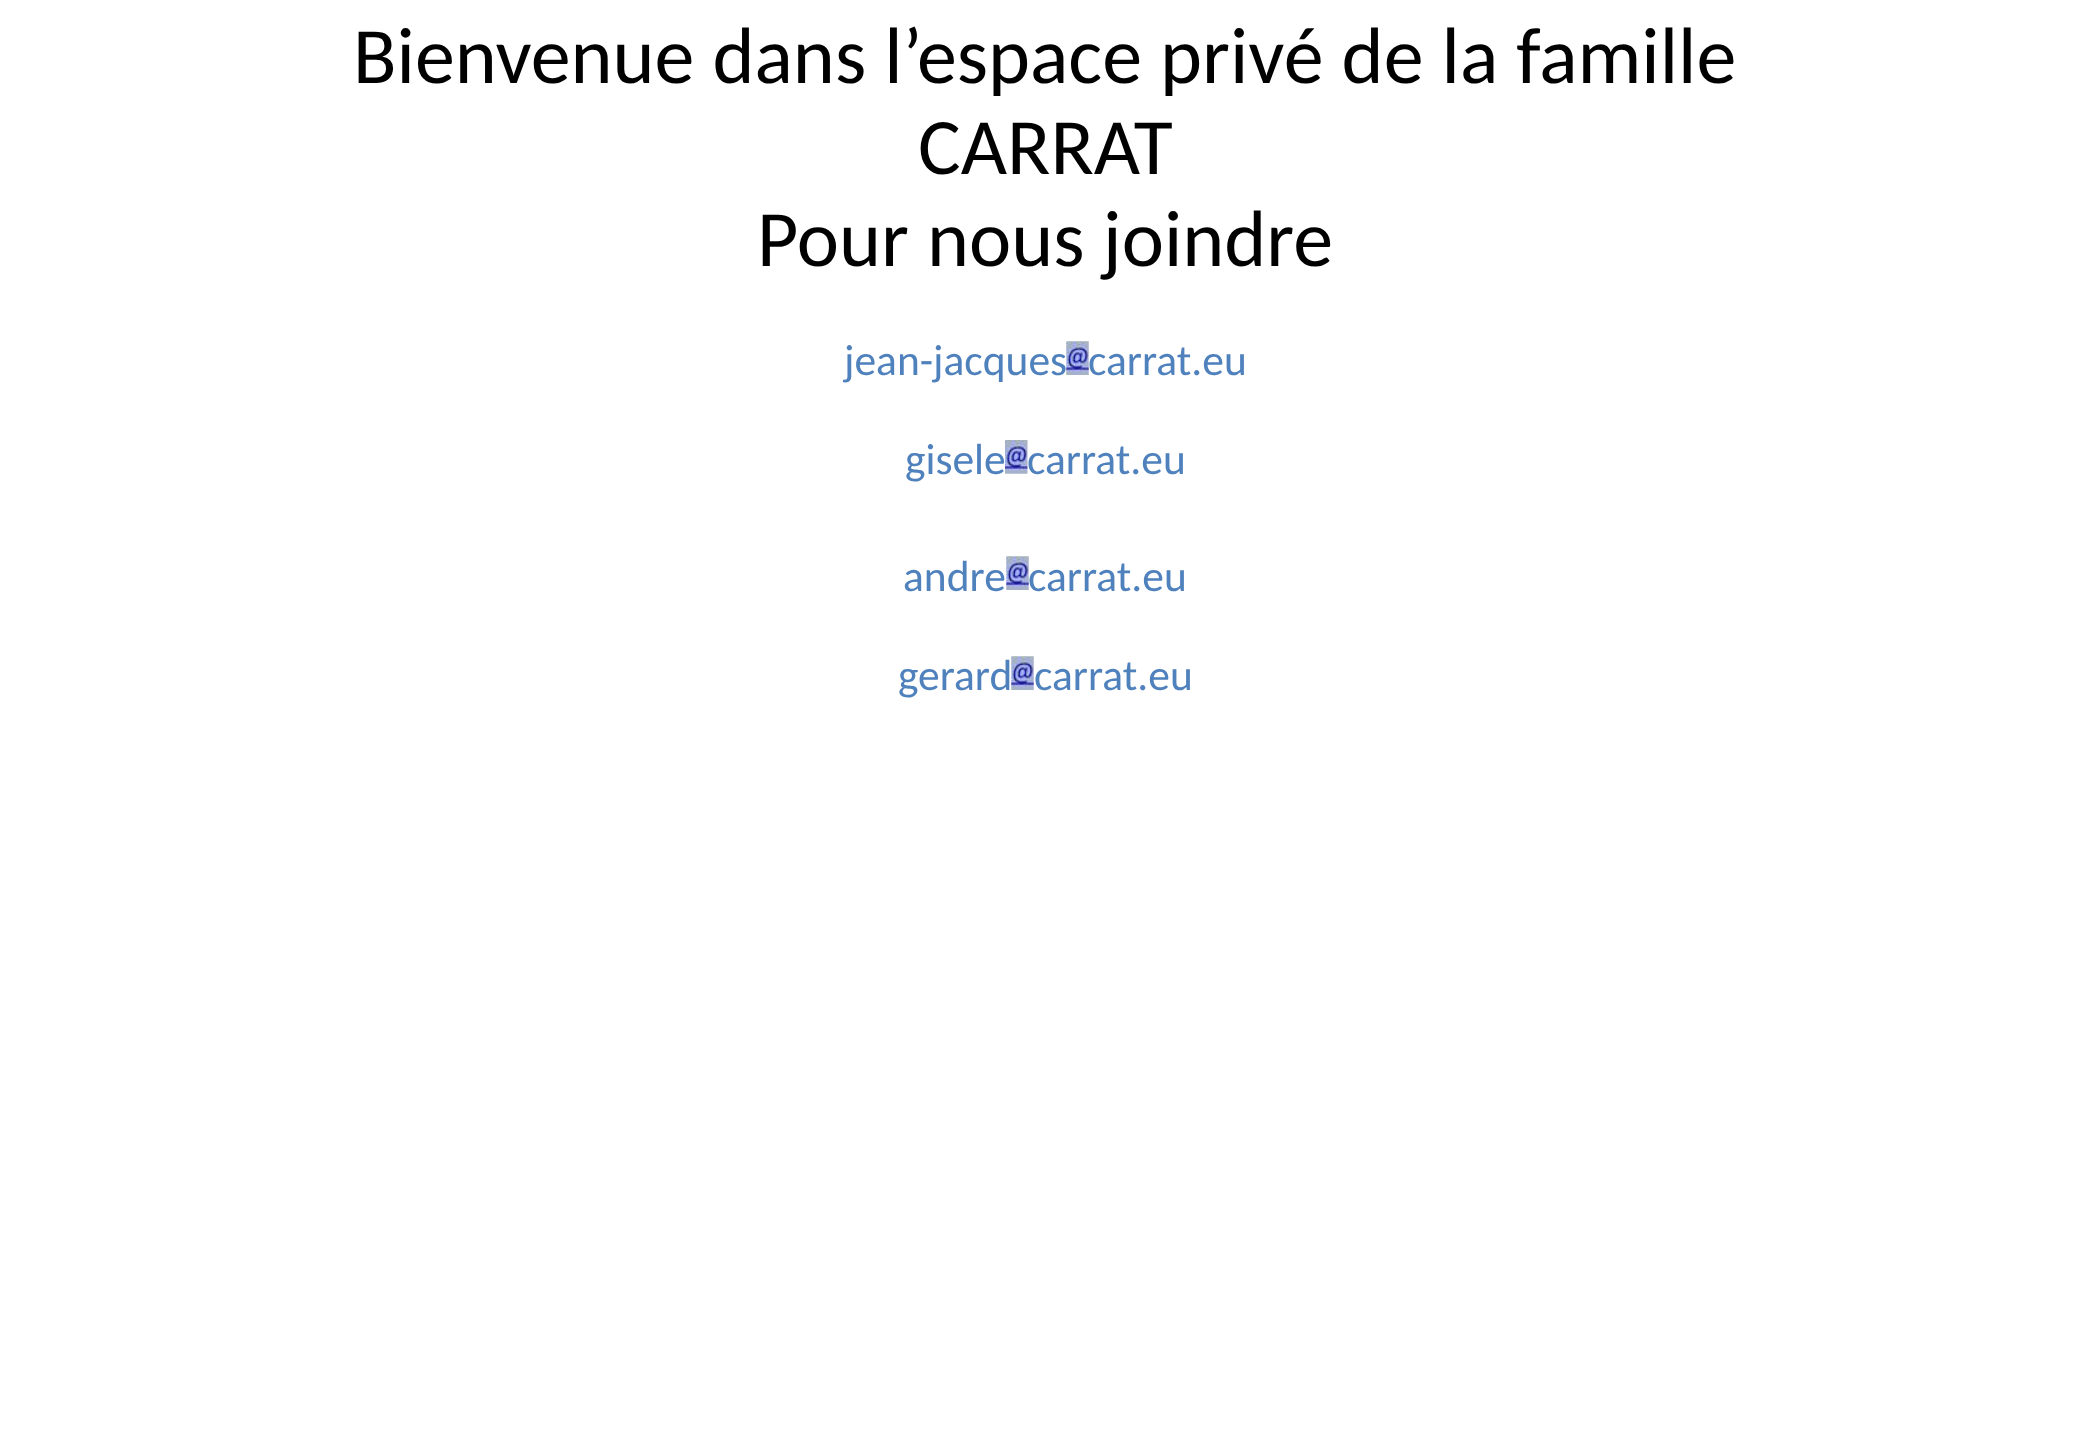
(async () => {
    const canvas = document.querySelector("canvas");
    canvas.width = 2090;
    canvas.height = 1450;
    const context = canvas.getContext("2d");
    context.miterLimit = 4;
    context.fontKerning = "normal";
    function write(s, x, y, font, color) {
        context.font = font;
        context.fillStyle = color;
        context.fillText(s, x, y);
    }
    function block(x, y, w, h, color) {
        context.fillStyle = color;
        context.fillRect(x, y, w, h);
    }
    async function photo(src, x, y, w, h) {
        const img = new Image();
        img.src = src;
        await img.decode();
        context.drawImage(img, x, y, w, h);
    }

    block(0, 0, 2090, 1450, "rgb(255, 255, 255)");
    write("Bienvenue dans l’espace privé de la famille", 353, 83, "80px Carlito", "rgb(0, 0, 0)");
    write("CARRAT", 918, 174, "80px Carlito", "rgb(0, 0, 0)");
    write("Pour nous joindre", 757, 266, "80px Carlito", "rgb(0, 0, 0)");
    write("jean-jacques", 844, 375, "43.5px Carlito", "rgb(79, 129, 189)");
    await photo("media/1.png", 1066, 341, 23, 34);
    write("carrat.eu", 1088, 375, "43.5px Carlito", "rgb(79, 129, 189)");
    write("gisele", 905, 474, "43.5px Carlito", "rgb(79, 129, 189)");
    await photo("media/2.png", 1005, 440, 23, 34);
    write("carrat.eu", 1027, 474, "43.5px Carlito", "rgb(79, 129, 189)");
    write("andre", 903, 591, "43.5px Carlito", "rgb(79, 129, 189)");
    await photo("media/3.png", 1006, 556, 23, 34);
    write("carrat.eu", 1028, 591, "43.5px Carlito", "rgb(79, 129, 189)");
    write("gerard", 898, 690, "43.5px Carlito", "rgb(79, 129, 189)");
    await photo("media/4.png", 1011, 656, 23, 34);
    write("carrat.eu", 1034, 690, "43.5px Carlito", "rgb(79, 129, 189)");
})();
